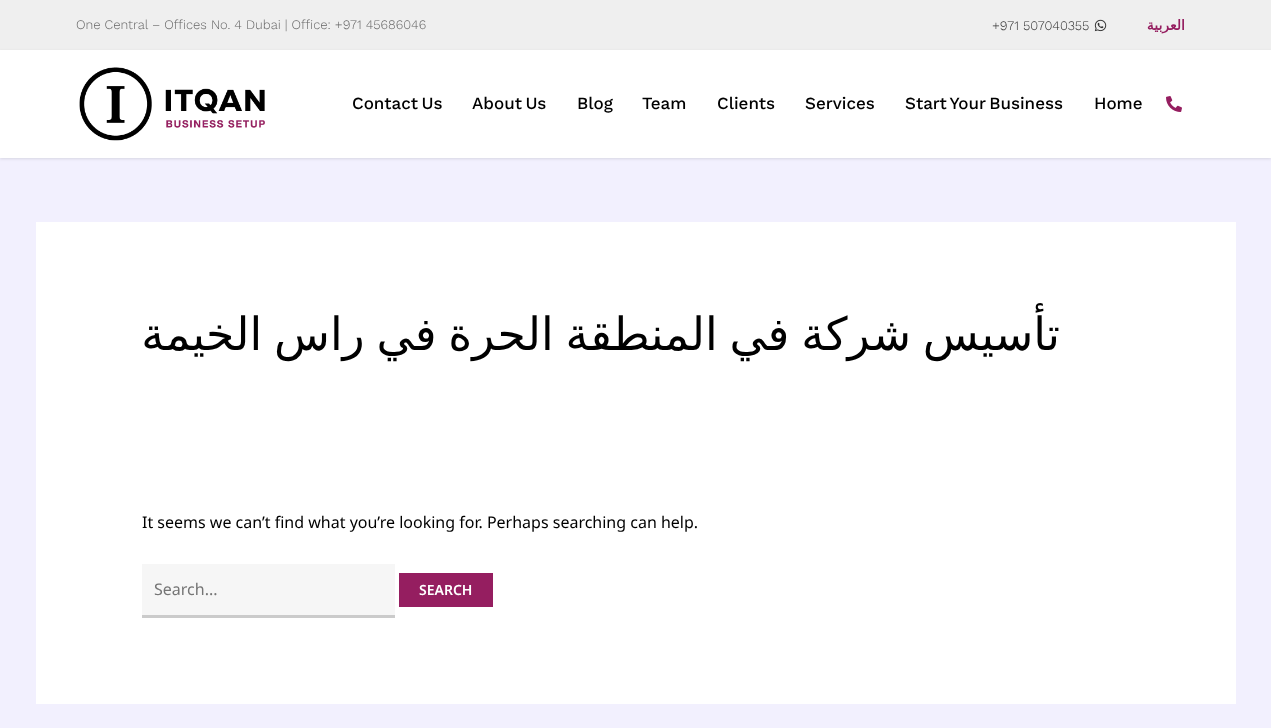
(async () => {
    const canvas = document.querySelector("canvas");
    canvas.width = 1271;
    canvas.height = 728;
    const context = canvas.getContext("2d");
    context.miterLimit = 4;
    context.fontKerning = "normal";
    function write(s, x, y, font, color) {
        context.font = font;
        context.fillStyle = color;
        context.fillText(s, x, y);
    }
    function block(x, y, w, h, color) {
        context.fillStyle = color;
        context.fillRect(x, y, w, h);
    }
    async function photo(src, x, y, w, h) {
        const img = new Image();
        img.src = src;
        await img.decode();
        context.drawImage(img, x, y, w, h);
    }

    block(0, 0, 1271, 728, "rgb(242, 240, 254)");
    block(0, 0, 1271, 50, "rgb(239, 239, 239)");
    write("One Central – Offices No. 4 Dubai | Office: +971 45686046", 76, 29, "300 13px Work Sans", "rgb(102, 102, 102)");
    write("+971 507040355", 992, 30, "300 13px Work Sans", "rgb(48, 48, 48)");
    await photo("media/1.png", 1094, 19, 13, 13);
    context.direction = "rtl";
    write("العربية", 1185, 30, "bold 14px DejaVu Sans", "rgb(149, 30, 96)");
    context.fillStyle = "rgba(0, 0, 0, 0.11)";
    context.filter = "blur(1.5px)";
    context.beginPath();
    context.rect(0, 51, 1271, 108);
    context.fill();
    context.filter = "none";
    block(0, 50, 1271, 108, "rgb(255, 255, 255)");
    await photo("media/2.png", 79, 67, 186, 74);
    context.wordSpacing = "-2px";
    context.direction = "ltr";
    write("Contact Us", 352, 109, "500 17px Work Sans", "rgb(0, 0, 0)");
    write("About Us", 472, 109, "500 17px Work Sans", "rgb(0, 0, 0)");
    context.wordSpacing = "0px";
    write("Blog", 577, 109, "500 17px Work Sans", "rgb(0, 0, 0)");
    write("Team", 642, 109, "500 17px Work Sans", "rgb(0, 0, 0)");
    write("Clients", 717, 109, "500 17px Work Sans", "rgb(0, 0, 0)");
    write("Services", 805, 109, "500 17px Work Sans", "rgb(0, 0, 0)");
    context.wordSpacing = "-2px";
    write("Start Your Business", 905, 109, "500 17px Work Sans", "rgb(0, 0, 0)");
    context.wordSpacing = "0px";
    write("Home", 1094, 109, "500 17px Work Sans", "rgb(0, 0, 0)");
    await photo("media/3.png", 1166, 96, 16, 16);
    block(36, 222, 1200, 482, "rgb(255, 255, 255)");
    context.wordSpacing = "-2.75px";
    context.direction = "rtl";
    write("تأسيس شركة في المنطقة الحرة في راس الخيمة", 1060, 350, "45.75px DejaVu Sans", "rgb(0, 0, 0)");
    context.wordSpacing = "0px";
    context.direction = "ltr";
    write("It seems we can’t find what you’re looking for. Perhaps searching can help.", 142, 528, "16px Noto Sans", "rgb(0, 0, 0)");
    block(142, 564, 253, 51, "rgb(246, 246, 246)");
    block(142, 615, 253, 3, "rgb(203, 203, 203)");
    write("Search...", 154, 595, "16px Noto Sans", "rgb(117, 117, 117)");
    block(399, 573, 94, 34, "rgb(149, 30, 96)");
    write("SEARCH", 419, 595, "600 14px Noto Sans", "rgb(255, 255, 255)");
})();
